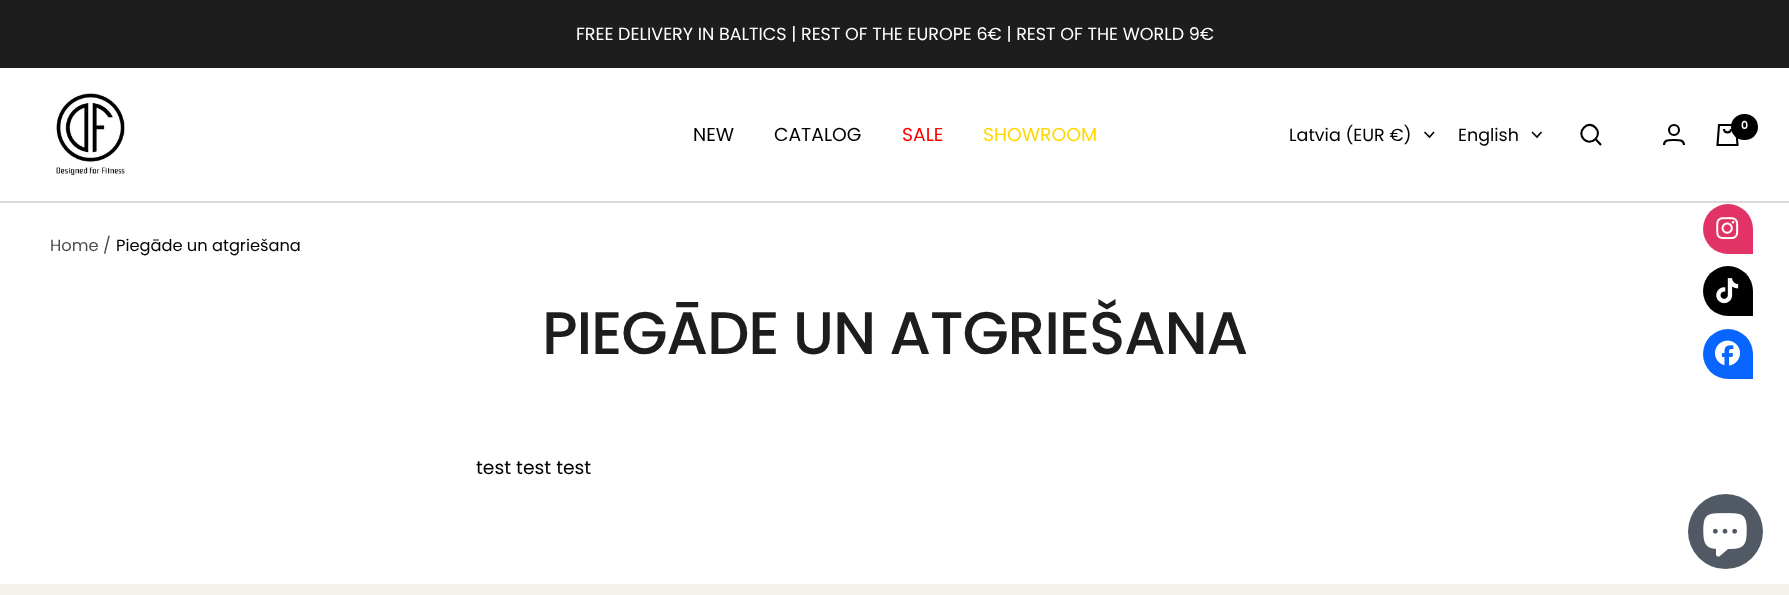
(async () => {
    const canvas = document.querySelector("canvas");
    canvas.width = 1789;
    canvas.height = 595;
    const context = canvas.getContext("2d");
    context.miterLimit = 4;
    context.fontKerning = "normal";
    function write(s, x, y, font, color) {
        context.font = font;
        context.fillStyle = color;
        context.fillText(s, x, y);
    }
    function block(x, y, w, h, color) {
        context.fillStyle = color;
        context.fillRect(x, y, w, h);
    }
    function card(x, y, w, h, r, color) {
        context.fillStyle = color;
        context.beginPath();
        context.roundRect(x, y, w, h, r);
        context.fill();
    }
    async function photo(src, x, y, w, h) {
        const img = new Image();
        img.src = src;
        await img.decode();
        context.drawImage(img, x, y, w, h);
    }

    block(0, 0, 1789, 595, "rgb(255, 255, 255)");
    block(0, 0, 1789, 68, "rgb(29, 29, 29)");
    write("FREE DELIVERY IN BALTICS | REST OF THE EUROPE 6€ | REST OF THE WORLD 9€", 576, 40, "17.5px Poppins", "rgb(255, 255, 255)");
    block(0, 201, 1789, 2, "rgb(217, 217, 217)");
    await photo("media/1.png", 55, 93, 70, 82);
    write("NEW", 693, 141, "18.75px Poppins", "rgb(0, 0, 0)");
    write("CATALOG", 774, 141, "18.75px Poppins", "rgb(0, 0, 0)");
    write("SALE", 902, 141, "18.75px Poppins", "rgb(255, 0, 0)");
    write("SHOWROOM", 983, 141, "18.75px Poppins", "rgb(255, 215, 0)");
    write("Latvia (EUR €)", 1289, 141, "17.5px Poppins", "rgb(0, 0, 0)");
    context.beginPath();
    context.moveTo(1424.5, 132);
    context.lineTo(1429.5, 137);
    context.lineTo(1434, 132);
    context.strokeStyle = "rgb(0, 0, 0)";
    context.lineWidth = 1.6;
    context.stroke();
    write("English", 1458, 141, "17.5px Poppins", "rgb(0, 0, 0)");
    context.beginPath();
    context.moveTo(1532, 132);
    context.lineTo(1537, 137);
    context.lineTo(1541.5, 132);
    context.stroke();
    context.beginPath();
    context.moveTo(1595.5, 139);
    context.bezierCurveTo(1603, 131.5, 1591.5, 119.5, 1584, 127.5);
    context.bezierCurveTo(1576, 135.5, 1587.5, 147, 1595.5, 139);
    context.closePath();
    context.moveTo(1595.5, 139);
    context.lineTo(1601, 145);
    context.lineWidth = 2.1;
    context.stroke();
    context.beginPath();
    context.arc(1674, 130, 5, 0, Math.PI * 2);
    context.stroke();
    context.beginPath();
    context.moveTo(1664, 145);
    context.bezierCurveTo(1664, 139.5, 1670, 140, 1674, 140);
    context.bezierCurveTo(1677.5, 140, 1684, 139.5, 1684, 145);
    context.stroke();
    context.beginPath();
    context.moveTo(1719, 125);
    context.lineTo(1736, 125);
    context.lineTo(1737.5, 145);
    context.lineTo(1717.5, 145);
    context.closePath();
    context.moveTo(1724, 129);
    context.bezierCurveTo(1724, 133.5, 1731, 133.5, 1731, 129);
    context.stroke();
    card(1731, 114, 27, 26, 13, "rgb(0, 0, 0)");
    write("0", 1741, 129, "600 11px Poppins", "rgb(255, 255, 255)");
    write("Home", 50, 251, "16.25px Poppins", "rgb(77, 77, 77)");
    write("/", 103, 251, "16.25px Poppins", "rgb(77, 77, 77)");
    write("Piegāde un atgriešana", 116, 251, "16.25px Poppins", "rgb(0, 0, 0)");
    context.letterSpacing = "-1.25px";
    write("PIEGĀDE UN ATGRIEŠANA", 542, 354, "500 60px Poppins", "rgb(29, 29, 29)");
    context.letterSpacing = "0px";
    write("test test test", 476, 474, "18.75px Poppins", "rgb(0, 0, 0)");
    context.fillStyle = "rgb(226, 51, 103)";
    context.beginPath();
    context.roundRect(1703, 204, 50, 50, [25, 25, 0, 25]);
    context.fill();
    await photo("media/2.png", 1716, 217, 23, 23);
    context.fillStyle = "rgb(1, 1, 1)";
    context.beginPath();
    context.roundRect(1703, 266, 50, 50, [25, 25, 0, 25]);
    context.fill();
    await photo("media/3.png", 1716, 278, 23, 26);
    context.fillStyle = "rgb(8, 102, 255)";
    context.beginPath();
    context.roundRect(1703, 329, 50, 50, [25, 25, 0, 25]);
    context.fill();
    await photo("media/4.png", 1715, 340, 25, 26);
    context.fillStyle = "rgb(81, 90, 100)";
    context.beginPath();
    context.arc(1725.5, 531.5, 37.5, 0, Math.PI * 2);
    context.fill();
    await photo("media/5.png", 1703, 513, 44, 44);
    block(0, 584, 1789, 11, "rgb(245, 241, 236)");
})();
